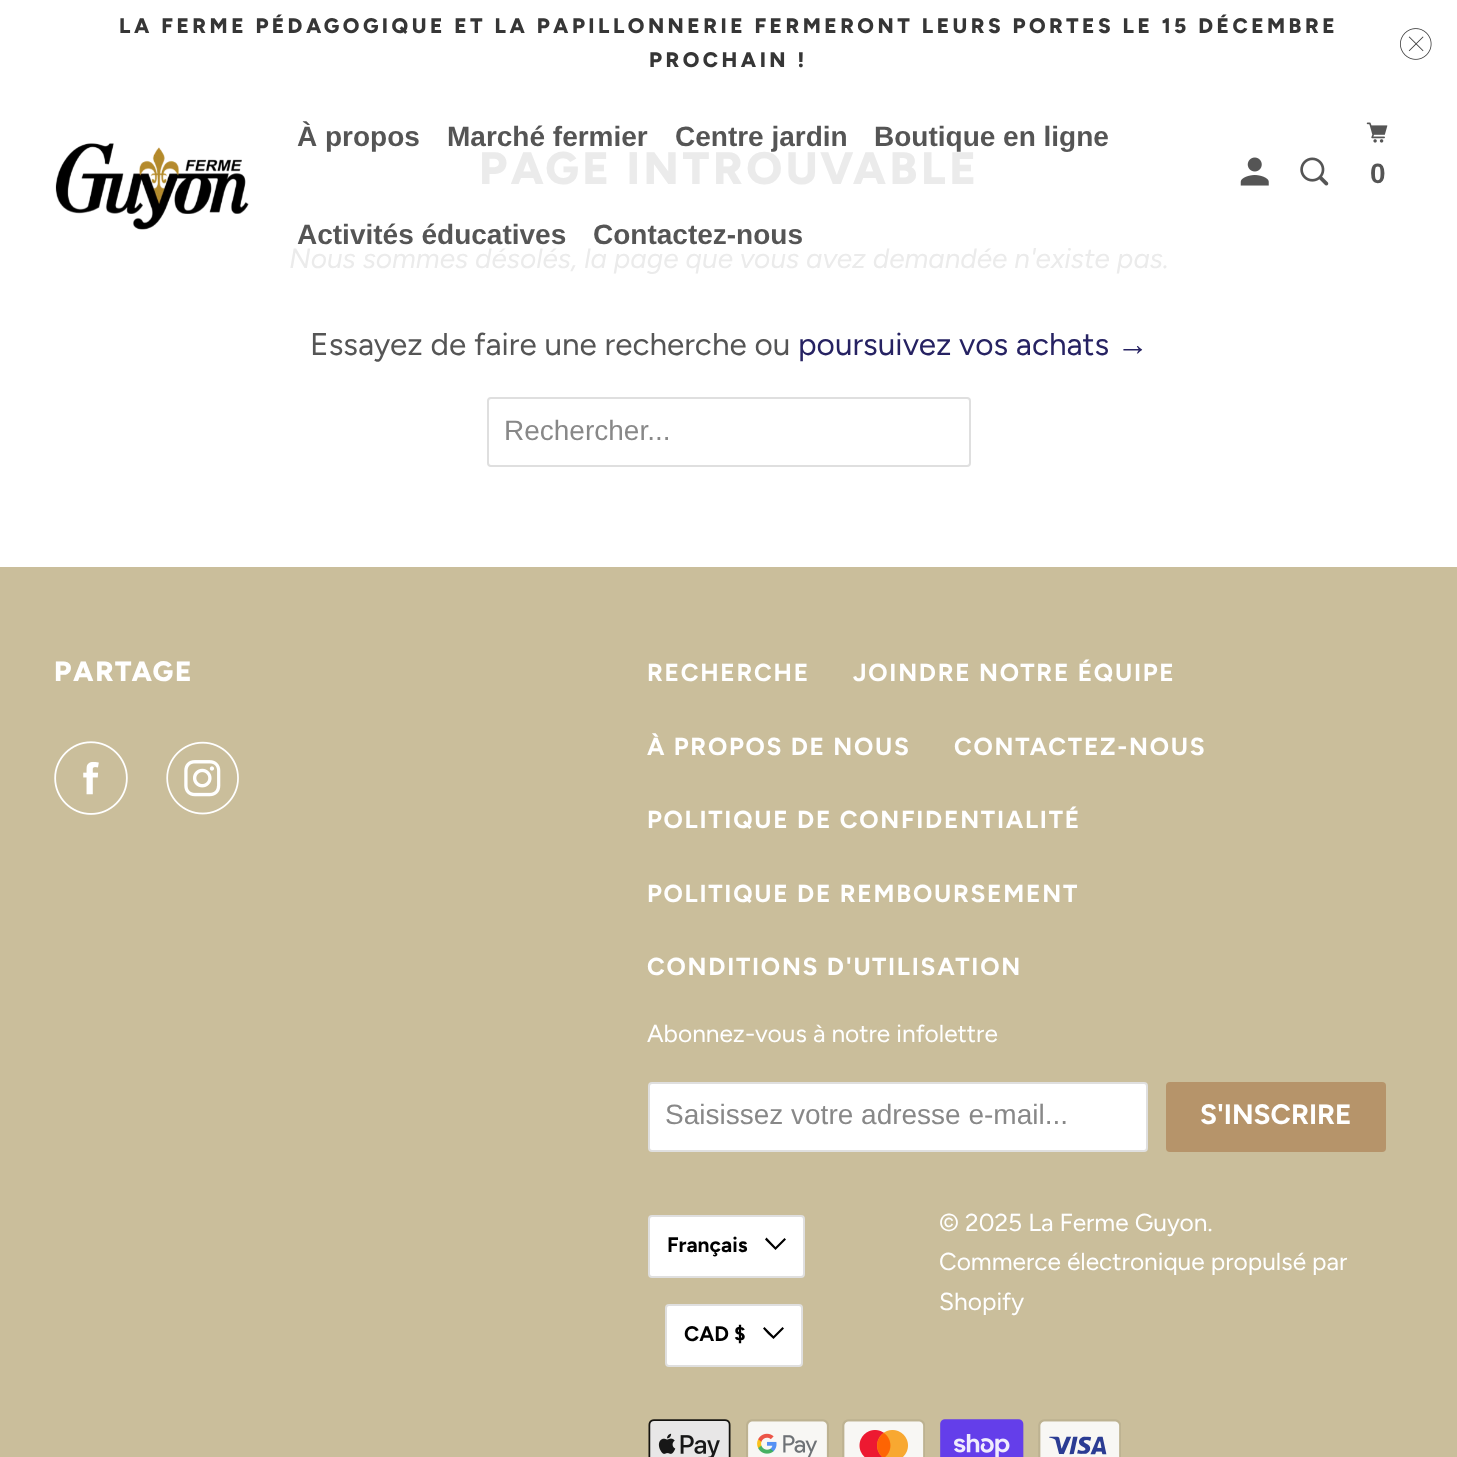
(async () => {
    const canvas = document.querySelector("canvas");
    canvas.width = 1457;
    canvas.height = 1457;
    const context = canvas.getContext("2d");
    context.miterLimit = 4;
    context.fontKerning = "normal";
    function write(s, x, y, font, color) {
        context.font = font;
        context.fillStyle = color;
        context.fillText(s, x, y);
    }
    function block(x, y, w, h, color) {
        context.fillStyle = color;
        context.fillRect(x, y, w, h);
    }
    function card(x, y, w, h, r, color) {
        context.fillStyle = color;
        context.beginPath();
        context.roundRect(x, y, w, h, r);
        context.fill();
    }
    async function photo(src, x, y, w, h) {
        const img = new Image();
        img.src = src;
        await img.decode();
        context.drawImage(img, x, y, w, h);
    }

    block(0, 0, 1457, 1457, "rgb(255, 255, 255)");
    context.letterSpacing = "3.5px";
    write("LA FERME PÉDAGOGIQUE ET LA PAPILLONNERIE FERMERONT LEURS PORTES LE 15 DÉCEMBRE", 119, 33, "800 21px Figtree", "rgb(54, 54, 54)");
    write("PROCHAIN !", 649, 67, "800 21px Figtree", "rgb(54, 54, 54)");
    await photo("media/1.png", 1400, 28, 32, 32);
    await photo("media/2.png", 55, 143, 194, 87);
    context.letterSpacing = "0px";
    write("À propos", 297, 146, "bold 28px Liberation Sans", "rgb(85, 85, 85)");
    write("Marché fermier", 447, 146, "bold 28px Liberation Sans", "rgb(85, 85, 85)");
    write("Centre jardin", 675, 146, "bold 28px Liberation Sans", "rgb(85, 85, 85)");
    write("Boutique en ligne", 874, 146, "bold 28px Liberation Sans", "rgb(85, 85, 85)");
    write("Activités éducatives", 297, 244, "bold 28px Liberation Sans", "rgb(85, 85, 85)");
    write("Contactez-nous", 593, 244, "bold 28px Liberation Sans", "rgb(85, 85, 85)");
    await photo("media/3.png", 1240, 157, 29, 29);
    await photo("media/4.png", 1300, 157, 29, 29);
    await photo("media/5.png", 1366, 122, 22, 21);
    write("0", 1370, 183, "bold 28px Liberation Sans", "rgb(85, 85, 85)");
    context.letterSpacing = "3.5px";
    write("PAGE INTROUVABLE", 479, 184, "800 45.5px Figtree", "rgb(235, 235, 235)");
    context.letterSpacing = "0px";
    write("Nous sommes désolés, la page que vous avez demandée n'existe pas.", 289, 268, "italic 28px Figtree", "rgb(235, 235, 235)");
    write("Essayez de faire une recherche ou", 310, 355, "31.5px Figtree", "rgb(85, 85, 85)");
    write("poursuivez vos achats", 798, 355, "31.5px Figtree", "rgb(38, 34, 98)");
    write("→", 1117, 355, "31.5px Liberation Sans", "rgb(38, 34, 98)");
    context.beginPath();
    context.roundRect(488, 398, 482, 68, 3);
    context.strokeStyle = "rgb(223, 223, 223)";
    context.lineWidth = 2;
    context.stroke();
    write("Rechercher...", 504, 440, "28px Liberation Sans", "rgb(136, 136, 136)");
    block(0, 567, 1457, 890, "rgb(202, 190, 155)");
    context.letterSpacing = "1.75px";
    write("PARTAGE", 54, 681, "800 28px Figtree", "rgb(255, 255, 255)");
    await photo("media/6.png", 54, 741, 74, 74);
    await photo("media/7.png", 166, 741, 73, 74);
    write("RECHERCHE", 647, 681, "bold 24.5px Figtree", "rgb(255, 255, 255)");
    write("JOINDRE NOTRE ÉQUIPE", 853, 681, "bold 24.5px Figtree", "rgb(255, 255, 255)");
    write("À PROPOS DE NOUS", 647, 755, "bold 24.5px Figtree", "rgb(255, 255, 255)");
    write("CONTACTEZ-NOUS", 954, 755, "bold 24.5px Figtree", "rgb(255, 255, 255)");
    write("POLITIQUE DE CONFIDENTIALITÉ", 647, 828, "bold 24.5px Figtree", "rgb(255, 255, 255)");
    write("POLITIQUE DE REMBOURSEMENT", 647, 902, "bold 24.5px Figtree", "rgb(255, 255, 255)");
    write("CONDITIONS D'UTILISATION", 647, 975, "bold 24.5px Figtree", "rgb(255, 255, 255)");
    context.letterSpacing = "0px";
    write("Abonnez-vous à notre infolettre", 647, 1042, "24.5px Figtree", "rgb(255, 255, 255)");
    context.beginPath();
    context.roundRect(649, 1083, 498, 68, 3);
    context.fill();
    context.stroke();
    write("Saisissez votre adresse e-mail...", 665, 1124, "28px Liberation Sans", "rgb(136, 136, 136)");
    card(1166, 1082, 220, 70, 4, "rgb(182, 148, 106)");
    write("S'INSCRIRE", 1200, 1124, "bold 28px Figtree", "rgb(255, 255, 255)");
    context.beginPath();
    context.roundRect(649, 1216, 155, 61, 3);
    context.fill();
    context.stroke();
    write("Français", 667, 1252, "bold 21px Figtree", "rgb(0, 0, 0)");
    context.beginPath();
    context.moveTo(770, 1244.5);
    context.lineTo(765, 1239.5);
    context.lineTo(766.5, 1237.5);
    context.lineTo(775.5, 1247);
    context.lineTo(784.5, 1238);
    context.lineTo(786, 1239.5);
    context.lineTo(775.5, 1250);
    context.closePath();
    context.fill();
    context.fillStyle = "rgb(255, 255, 255)";
    context.beginPath();
    context.roundRect(666, 1305, 136, 61, 3);
    context.fill();
    context.stroke();
    write("CAD $", 684, 1341, "bold 21px Figtree", "rgb(0, 0, 0)");
    context.beginPath();
    context.moveTo(768, 1334);
    context.lineTo(763, 1328.5);
    context.lineTo(764.5, 1327);
    context.lineTo(773.5, 1336);
    context.lineTo(782.5, 1327);
    context.lineTo(784, 1328.5);
    context.lineTo(773.5, 1339);
    context.closePath();
    context.fill();
    write("© 2025 La Ferme Guyon.", 939, 1231, "24.5px Figtree", "rgb(255, 255, 255)");
    write("Commerce électronique propulsé par", 939, 1270, "24.5px Figtree", "rgb(255, 255, 255)");
    write("Shopify", 939, 1310, "24.5px Figtree", "rgb(255, 255, 255)");
    await photo("media/8.png", 648, 1419, 83, 38);
    await photo("media/9.png", 746, 1419, 83, 38);
    await photo("media/10.png", 842, 1419, 83, 38);
    await photo("media/11.png", 940, 1419, 84, 38);
    await photo("media/12.png", 1038, 1419, 83, 38);
})();
